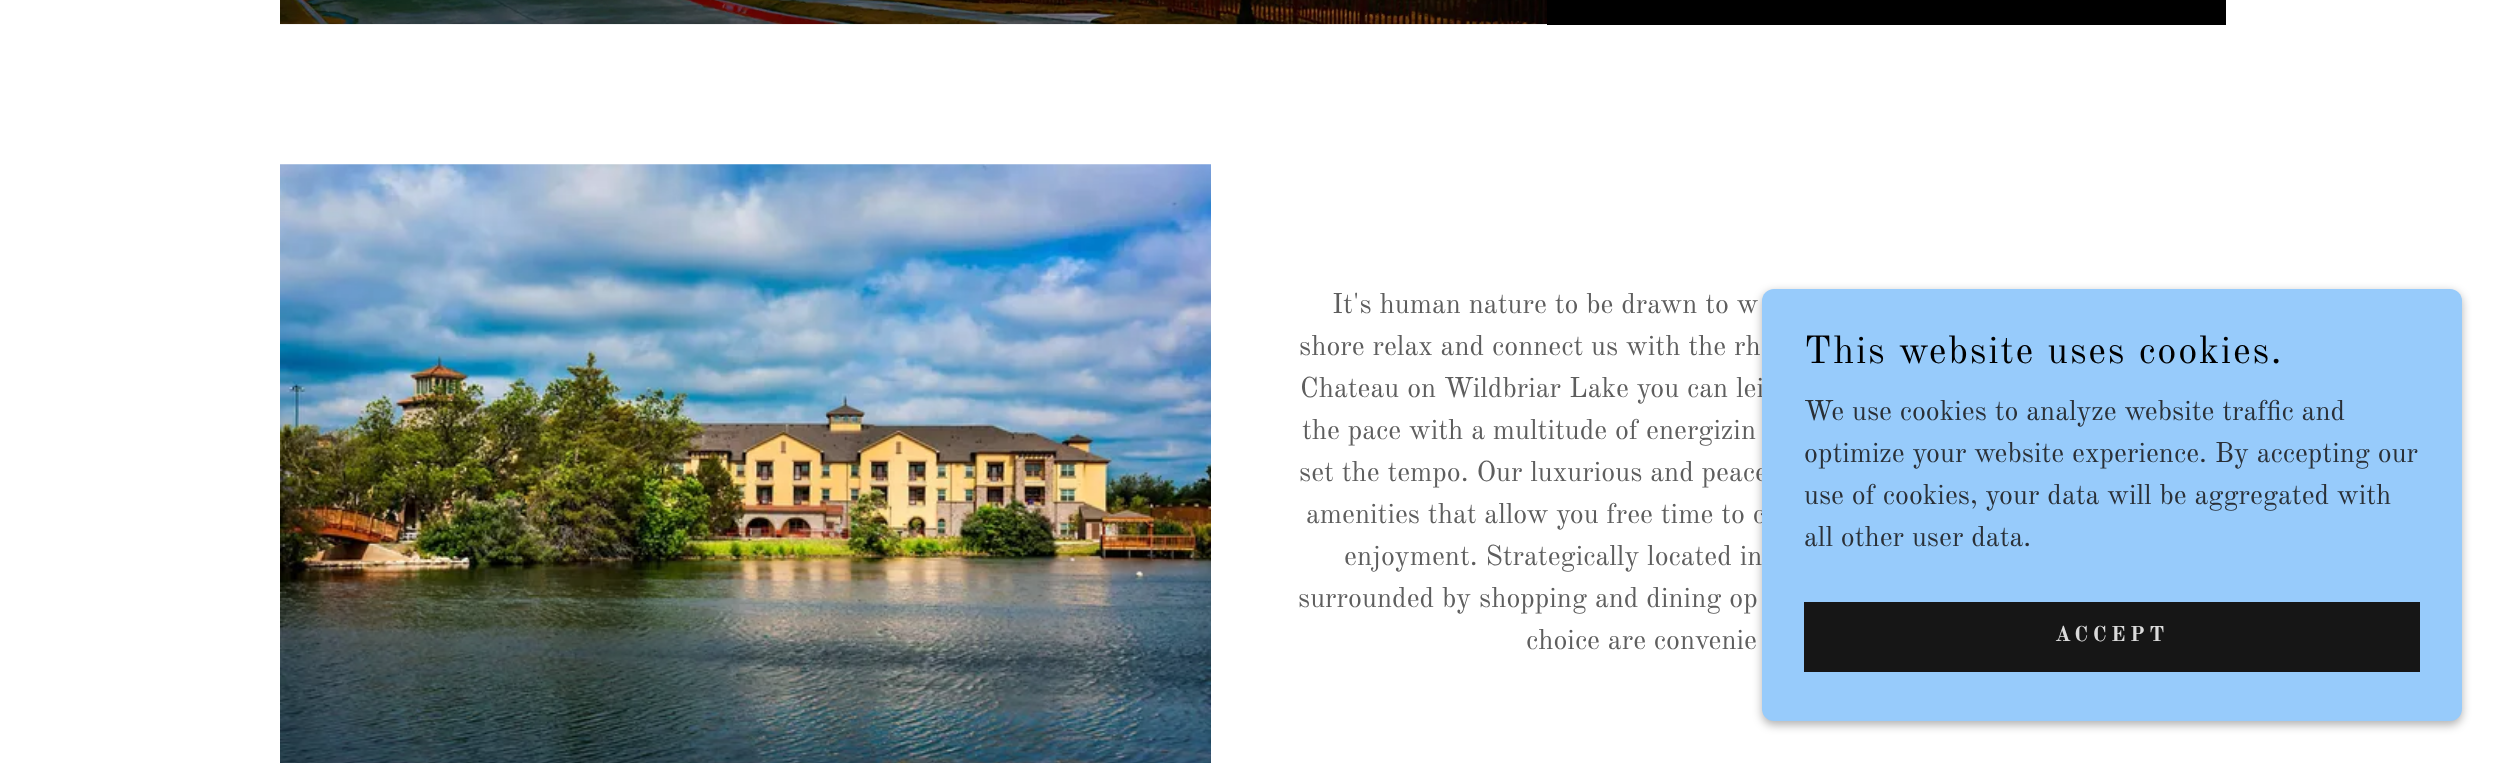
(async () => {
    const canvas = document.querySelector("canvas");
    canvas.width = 2503;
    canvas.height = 763;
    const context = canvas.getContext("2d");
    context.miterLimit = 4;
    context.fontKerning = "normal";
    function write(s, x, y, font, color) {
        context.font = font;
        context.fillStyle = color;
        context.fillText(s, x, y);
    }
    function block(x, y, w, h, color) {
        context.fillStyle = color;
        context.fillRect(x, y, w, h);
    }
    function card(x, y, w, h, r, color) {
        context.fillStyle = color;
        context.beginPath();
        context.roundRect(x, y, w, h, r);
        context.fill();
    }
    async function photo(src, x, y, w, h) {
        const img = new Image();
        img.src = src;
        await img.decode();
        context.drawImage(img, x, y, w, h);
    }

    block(0, 0, 2503, 763, "rgb(255, 255, 255)");
    await photo("media/1.png", 280, 0, 1267, 25);
    block(1547, 0, 679, 25, "rgb(0, 0, 0)");
    await photo("media/2.png", 280, 164, 931, 599);
    write("It's human nature to be drawn to w", 1332, 313, "28px Old Standard TT", "rgb(94, 94, 94)");
    write("shore relax and connect us with the rh", 1299, 355, "28px Old Standard TT", "rgb(94, 94, 94)");
    write("Chateau on Wildbriar Lake you can lei", 1300, 397, "28px Old Standard TT", "rgb(94, 94, 94)");
    write("the pace with a multitude of energizin", 1302, 439, "28px Old Standard TT", "rgb(94, 94, 94)");
    write("set the tempo. Our luxurious and peace", 1299, 481, "28px Old Standard TT", "rgb(94, 94, 94)");
    write("amenities that allow you free time to c", 1306, 523, "28px Old Standard TT", "rgb(94, 94, 94)");
    write("enjoyment. Strategically located in", 1344, 565, "28px Old Standard TT", "rgb(94, 94, 94)");
    write("surrounded by shopping and dining op", 1298, 607, "28px Old Standard TT", "rgb(94, 94, 94)");
    write("choice are convenie", 1526, 649, "28px Old Standard TT", "rgb(94, 94, 94)");
    context.fillStyle = "rgba(0, 0, 0, 0.3)";
    context.filter = "blur(5px)";
    context.beginPath();
    context.roundRect(1762, 292, 700, 433, 12);
    context.fill();
    context.filter = "none";
    card(1762, 289, 700, 432, 12, "rgb(151, 203, 251)");
    context.letterSpacing = "1.75px";
    write("This website uses cookies.", 1804, 363, "38.5px Old Standard TT", "rgb(0, 0, 0)");
    context.letterSpacing = "0px";
    write("We use cookies to analyze website traffic and", 1804, 420, "28px Old Standard TT", "rgb(42, 48, 55)");
    write("optimize your website experience. By accepting our", 1804, 462, "28px Old Standard TT", "rgb(42, 48, 55)");
    write("use of cookies, your data will be aggregated with", 1804, 504, "28px Old Standard TT", "rgb(42, 48, 55)");
    write("all other user data.", 1804, 546, "28px Old Standard TT", "rgb(42, 48, 55)");
    block(1804, 602, 616, 70, "rgb(22, 22, 22)");
    context.letterSpacing = "4.5px";
    write("ACCEPT", 2055, 641, "bold 21px Old Standard TT", "rgb(219, 219, 219)");
})();
